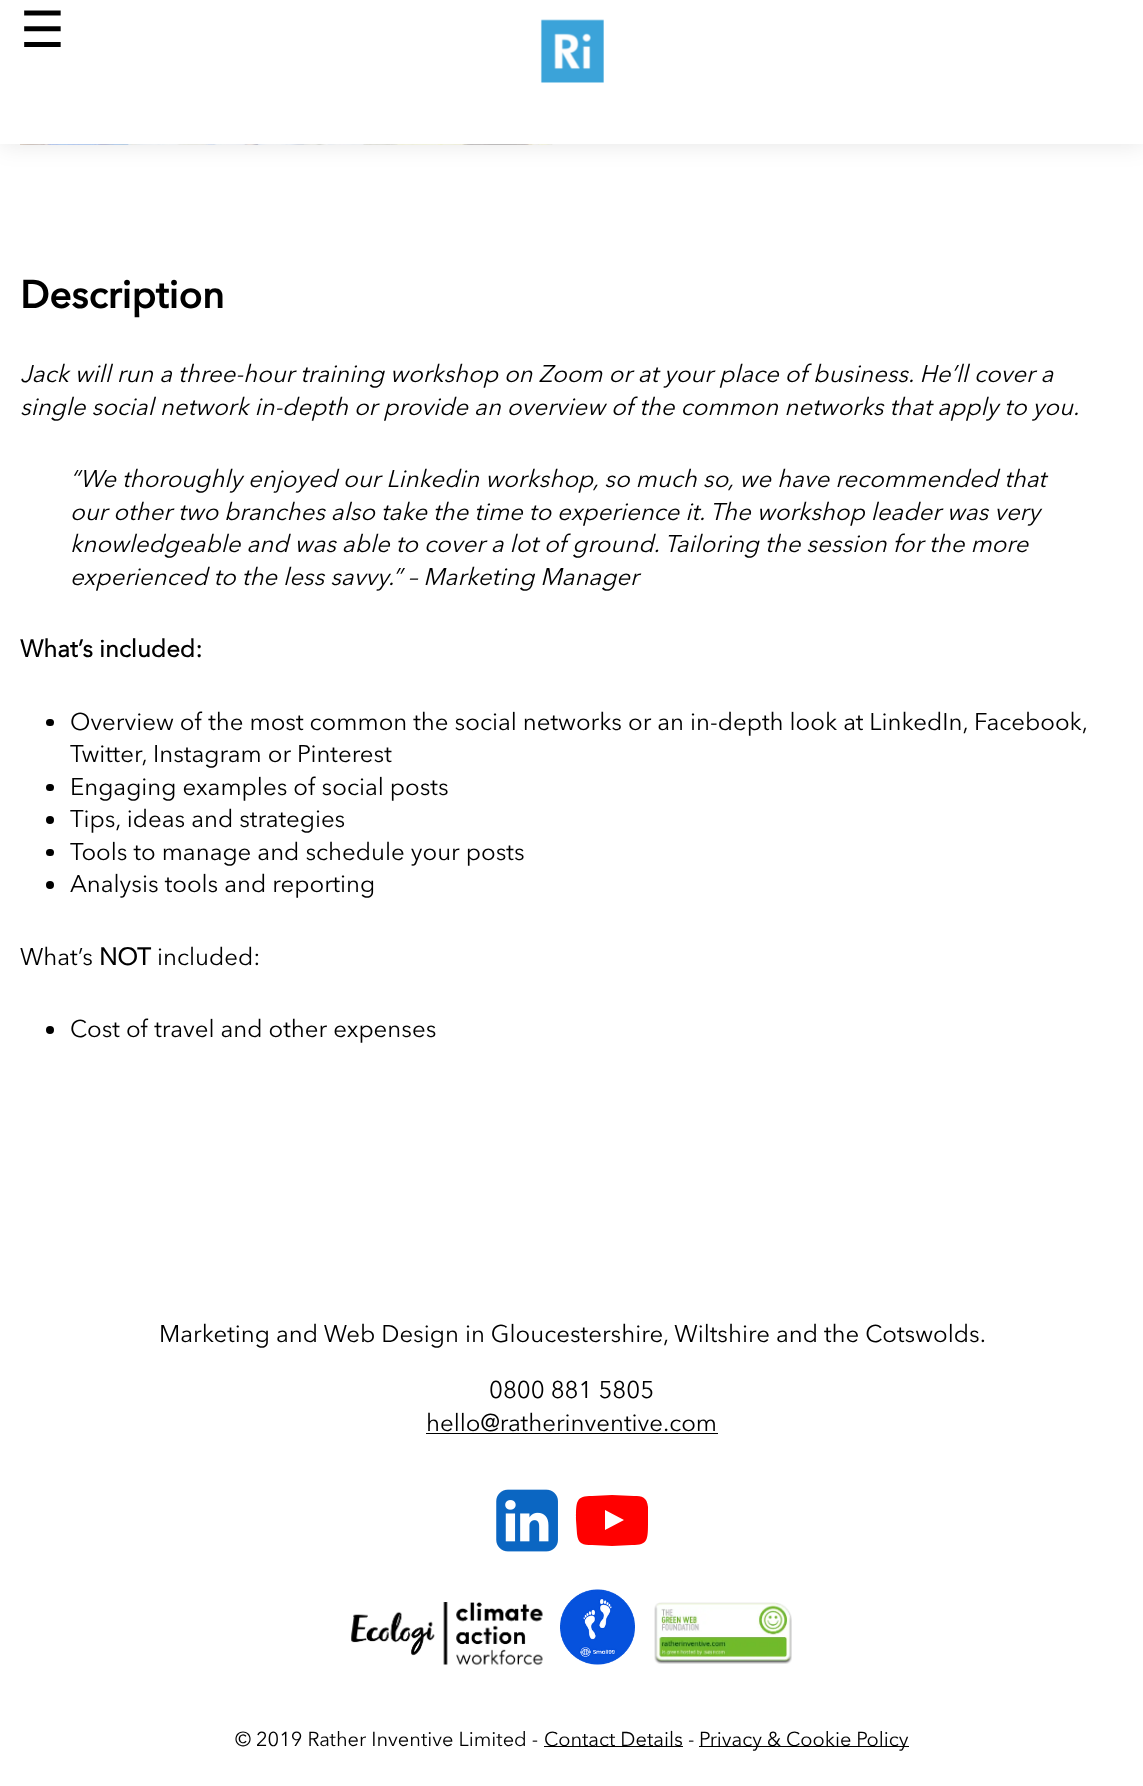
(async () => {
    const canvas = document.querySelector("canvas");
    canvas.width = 1143;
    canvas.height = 1786;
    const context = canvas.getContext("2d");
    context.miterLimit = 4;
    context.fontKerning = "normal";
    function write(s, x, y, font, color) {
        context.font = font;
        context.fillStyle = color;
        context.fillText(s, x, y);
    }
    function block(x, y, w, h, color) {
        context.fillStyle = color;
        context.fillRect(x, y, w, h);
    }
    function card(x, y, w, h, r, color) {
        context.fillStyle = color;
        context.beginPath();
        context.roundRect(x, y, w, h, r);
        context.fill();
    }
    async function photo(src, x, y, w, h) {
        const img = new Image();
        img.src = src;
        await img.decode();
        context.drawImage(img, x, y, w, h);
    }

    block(0, 0, 1143, 1786, "rgb(255, 255, 255)");
    await photo("media/2.png", 20, 144, 533, 1);
    context.fillStyle = "rgba(0, 0, 0, 0.1)";
    context.filter = "blur(12.5px)";
    context.beginPath();
    context.rect(0, 0, 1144, 144);
    context.fill();
    context.filter = "none";
    block(0, 0, 1143, 144, "rgb(255, 255, 255)");
    write("☰", 20, 47, "50px DejaVu Sans", "rgb(0, 0, 0)");
    await photo("media/1.png", 540, 19, 64, 64);
    write("Description", 20, 308, "bold 38.5px Avenir Next", "rgb(0, 0, 0)");
    write("Jack will run a three-hour training workshop on Zoom or at your place of business. He’ll cover a", 20, 382, "italic 24px Avenir Next", "rgb(0, 0, 0)");
    write("single social network in-depth or provide an overview of the common networks that apply to you.", 20, 415, "italic 24px Avenir Next", "rgb(0, 0, 0)");
    write("“We thoroughly enjoyed our Linkedin workshop, so much so, we have recommended that", 70, 487, "italic 24px Avenir Next", "rgb(0, 0, 0)");
    write("our other two branches also take the time to experience it. The workshop leader was very", 70, 520, "italic 24px Avenir Next", "rgb(0, 0, 0)");
    write("knowledgeable and was able to cover a lot of ground. Tailoring the session for the more", 70, 552, "italic 24px Avenir Next", "rgb(0, 0, 0)");
    write("experienced to the less savvy.” – Marketing Manager", 70, 585, "italic 24px Avenir Next", "rgb(0, 0, 0)");
    write("What’s included:", 20, 657, "bold 24px 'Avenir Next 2'", "rgb(0, 0, 0)");
    card(46, 719, 8, 7, 3.5, "rgb(0, 0, 0)");
    write("Overview of the most common the social networks or an in-depth look at LinkedIn, Facebook,", 70, 730, "24px Avenir Next", "rgb(0, 0, 0)");
    write("Twitter, Instagram or Pinterest", 70, 762, "24px Avenir Next", "rgb(0, 0, 0)");
    card(46, 784, 8, 7, 3.5, "rgb(0, 0, 0)");
    write("Engaging examples of social posts", 70, 795, "24px Avenir Next", "rgb(0, 0, 0)");
    context.beginPath();
    context.arc(50, 820, 4, 0, Math.PI * 2);
    context.fill();
    write("Tips, ideas and strategies", 70, 827, "24px Avenir Next", "rgb(0, 0, 0)");
    card(46, 849, 8, 7, 3.5, "rgb(0, 0, 0)");
    write("Tools to manage and schedule your posts", 70, 860, "24px Avenir Next", "rgb(0, 0, 0)");
    context.beginPath();
    context.arc(50, 885, 4, 0, Math.PI * 2);
    context.fill();
    write("Analysis tools and reporting", 70, 892, "24px Avenir Next", "rgb(0, 0, 0)");
    write("What’s", 20, 965, "24px Avenir Next", "rgb(0, 0, 0)");
    write("NOT", 99, 965, "bold 24px 'Avenir Next 2'", "rgb(0, 0, 0)");
    write("included:", 157, 965, "24px Avenir Next", "rgb(0, 0, 0)");
    context.beginPath();
    context.arc(50, 1030, 4, 0, Math.PI * 2);
    context.fill();
    write("Cost of travel and other expenses", 70, 1037, "24px Avenir Next", "rgb(0, 0, 0)");
    write("Marketing and Web Design in Gloucestershire, Wiltshire and the Cotswolds.", 159, 1342, "24px Avenir Next", "rgb(0, 0, 0)");
    write("0800 881 5805", 489, 1398, "24px Avenir Next", "rgb(0, 0, 0)");
    write("hello@ratherinventive.com", 426, 1431, "24px Avenir Next", "rgb(0, 0, 0)");
    block(426, 1433, 292, 1, "rgb(0, 0, 0)");
    await photo("media/3.png", 496, 1489, 62, 63);
    context.fillStyle = "rgb(255, 0, 0)";
    context.beginPath();
    context.moveTo(605, 1530);
    context.lineTo(624, 1520);
    context.lineTo(605, 1510);
    context.closePath();
    context.moveTo(612, 1495);
    context.lineTo(634, 1496);
    context.bezierCurveTo(642, 1496, 647, 1497, 648, 1507);
    context.lineTo(648, 1521);
    context.bezierCurveTo(648, 1540, 648, 1545, 632, 1545);
    context.lineTo(612, 1546);
    context.lineTo(592, 1545);
    context.bezierCurveTo(583, 1545, 578, 1544, 577, 1534);
    context.lineTo(576, 1520);
    context.bezierCurveTo(576, 1501, 576, 1496, 592, 1496);
    context.closePath();
    context.fill();
    await photo("media/4.png", 351, 1602, 192, 63);
    await photo("media/5.png", 560, 1589, 75, 76);
    await photo("media/6.png", 654, 1602, 138, 62);
    write("© 2019 Rather Inventive Limited -", 235, 1746, "20px Avenir Next", "rgb(0, 0, 0)");
    block(544, 1746, 139, 1, "rgb(0, 0, 0)");
    write("Contact Details -", 544, 1746, "20px Avenir Next", "rgb(0, 0, 0)");
    block(699, 1746, 210, 1, "rgb(0, 0, 0)");
    write("Privacy & Cookie Policy", 699, 1746, "20px Avenir Next", "rgb(0, 0, 0)");
})();
